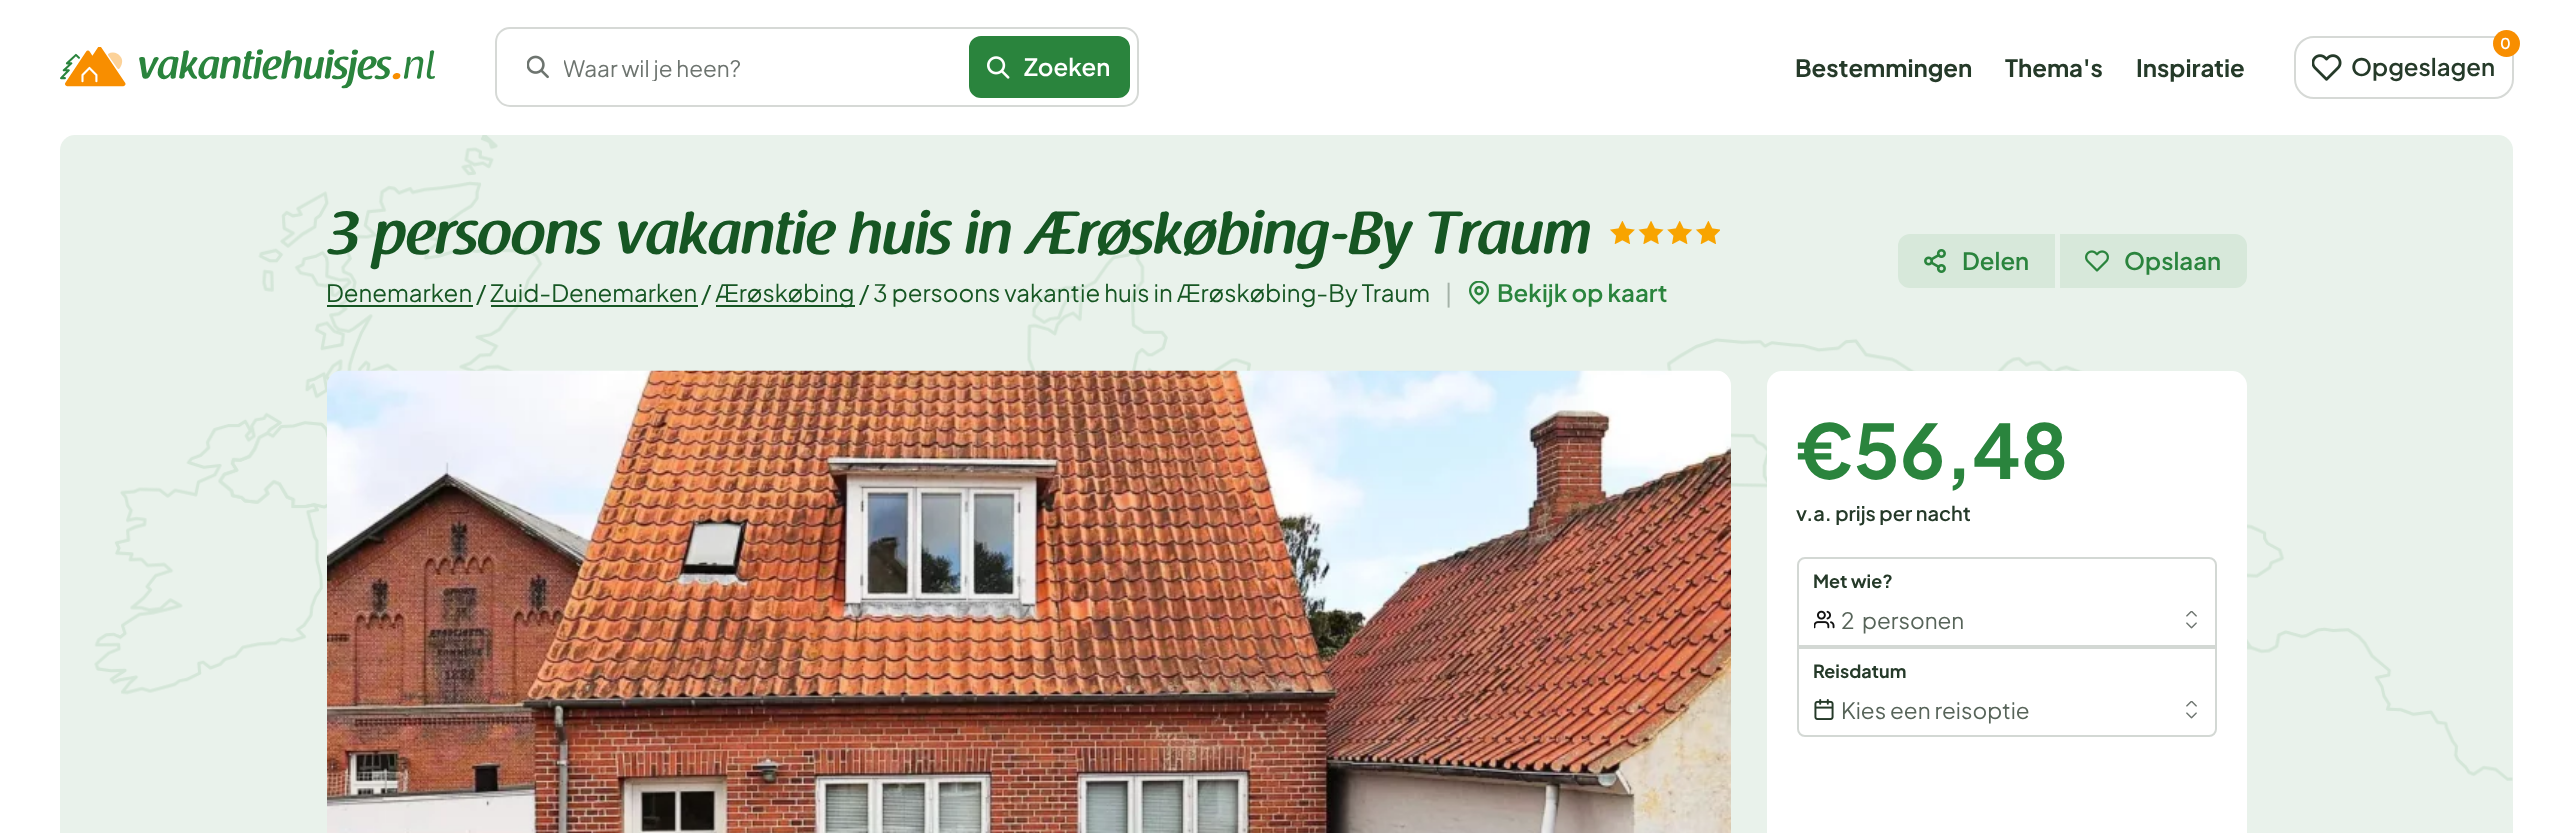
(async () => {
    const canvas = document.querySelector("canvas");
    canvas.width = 2572;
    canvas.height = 833;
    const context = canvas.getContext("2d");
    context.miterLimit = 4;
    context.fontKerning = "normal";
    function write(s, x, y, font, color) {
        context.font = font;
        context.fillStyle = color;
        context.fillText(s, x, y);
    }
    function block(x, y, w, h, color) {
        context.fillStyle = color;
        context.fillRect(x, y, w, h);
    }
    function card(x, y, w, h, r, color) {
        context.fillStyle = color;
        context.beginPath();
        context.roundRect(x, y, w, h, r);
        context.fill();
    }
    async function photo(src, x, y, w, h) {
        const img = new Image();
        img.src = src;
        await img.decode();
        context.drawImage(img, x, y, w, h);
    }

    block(0, 0, 2572, 833, "rgb(255, 255, 255)");
    await photo("media/1.png", 60, 47, 375, 42);
    context.beginPath();
    context.roundRect(496, 28, 642, 78, 14);
    context.strokeStyle = "rgb(214, 217, 214)";
    context.lineWidth = 2;
    context.stroke();
    await photo("media/2.png", 527, 55, 22, 24);
    context.save();
    context.beginPath();
    context.rect(564, 53, 177, 28);
    context.clip();
    write("Waar wil je heen?", 563, 77, "22.5px Plus Jakarta Sans", "rgb(109, 116, 111)");
    context.restore();
    context.fillStyle = "rgb(42, 132, 61)";
    context.beginPath();
    context.roundRect(970, 37, 159, 60, 11);
    context.fill();
    context.strokeStyle = "rgb(42, 132, 61)";
    context.stroke();
    await photo("media/3.png", 987, 56, 23, 23);
    write("Zoeken", 1024, 76, "600 24px Plus Jakarta Sans", "rgb(255, 255, 255)");
    write("Bestemmingen", 1795, 77, "bold 24px Plus Jakarta Sans", "rgb(37, 58, 41)");
    write("Thema's", 2005, 77, "bold 24px Plus Jakarta Sans", "rgb(37, 58, 41)");
    write("Inspiratie", 2136, 77, "bold 24px Plus Jakarta Sans", "rgb(37, 58, 41)");
    context.beginPath();
    context.roundRect(2295, 37, 218, 61, 19);
    context.strokeStyle = "rgb(214, 217, 214)";
    context.stroke();
    context.fillStyle = "rgb(248, 142, 0)";
    context.beginPath();
    context.arc(2506.5, 43.5, 13.5, 0, Math.PI * 2);
    context.fill();
    write("0", 2500, 49, "600 15px Plus Jakarta Sans", "rgb(255, 255, 255)");
    await photo("media/4.png", 2312, 54, 30, 27);
    write("Opgeslagen", 2351, 76, "600 24px Plus Jakarta Sans", "rgb(37, 58, 41)");
    card(60, 135, 2453, 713, 15, "rgb(233, 242, 235)");
    await photo("media/5.png", 94, 135, 2419, 646);
    write("3 persoons vakantie huis in Ærøskøbing-By Traum", 326, 254, "italic 600 60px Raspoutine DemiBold", "rgb(22, 86, 35)");
    await photo("media/6.png", 1610, 221, 110, 23);
    write("Denemarken", 326, 302, "24px Plus Jakarta Sans", "rgb(22, 86, 35)");
    block(327, 305, 146, 2, "rgb(22, 86, 35)");
    write("/", 476, 302, "24px Plus Jakarta Sans", "rgb(22, 86, 35)");
    write("Zuid-Denemarken", 490, 302, "24px Plus Jakarta Sans", "rgb(22, 86, 35)");
    block(491, 305, 207, 2, "rgb(22, 86, 35)");
    write("/", 701, 302, "24px Plus Jakarta Sans", "rgb(22, 86, 35)");
    block(716, 305, 139, 2, "rgb(22, 86, 35)");
    write("Ærøskøbing", 715, 302, "24px Plus Jakarta Sans", "rgb(22, 86, 35)");
    write("/", 859, 302, "24px Plus Jakarta Sans", "rgb(22, 86, 35)");
    write("3 persoons vakantie huis in Ærøskøbing-By Traum", 873, 302, "24px Plus Jakarta Sans", "rgb(22, 86, 35)");
    write("|", 1445, 303, "24px Plus Jakarta Sans", "rgb(164, 178, 167)");
    await photo("media/7.png", 1469, 281, 20, 24);
    write("Bekijk op kaart", 1497, 302, "600 24px Plus Jakarta Sans", "rgb(42, 132, 61)");
    context.fillStyle = "rgb(215, 232, 218)";
    context.beginPath();
    context.roundRect(1899, 235, 155, 52, [11, 0, 0, 11]);
    context.fill();
    context.strokeStyle = "rgb(215, 232, 218)";
    context.stroke();
    await photo("media/8.png", 1924, 249, 22, 24);
    write("Delen", 1962, 270, "600 24px Plus Jakarta Sans", "rgb(42, 132, 61)");
    context.fillStyle = "rgb(215, 232, 218)";
    context.beginPath();
    context.roundRect(2061, 235, 185, 52, [0, 11, 11, 0]);
    context.fill();
    context.stroke();
    await photo("media/9.png", 2085, 250, 24, 22);
    write("Opslaan", 2124, 270, "600 24px Plus Jakarta Sans", "rgb(42, 132, 61)");
    await photo("media/10.png", 327, 370, 1404, 463);
    card(1767, 371, 480, 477, 15, "rgb(255, 255, 255)");
    write("€56,48", 1796, 479, "bold 75px Plus Jakarta Sans", "rgb(42, 132, 61)");
    write("v.a. prijs per nacht", 1796, 521, "600 20px Plus Jakarta Sans", "rgb(37, 58, 41)");
    context.beginPath();
    context.roundRect(1798, 558, 418, 88, [7, 7, 0, 0]);
    context.strokeStyle = "rgb(211, 216, 212)";
    context.stroke();
    write("Met wie?", 1813, 588, "bold 18px Plus Jakarta Sans", "rgb(37, 58, 41)");
    await photo("media/11.png", 1814, 610, 21, 19);
    write("2", 1841, 629, "22.5px Plus Jakarta Sans", "rgb(87, 100, 89)");
    write("personen", 1862, 629, "22.5px Plus Jakarta Sans", "rgb(87, 100, 89)");
    await photo("media/12.png", 2186, 611, 11, 18);
    context.beginPath();
    context.roundRect(1798, 648, 418, 88, [0, 0, 7, 7]);
    context.stroke();
    write("Reisdatum", 1813, 678, "bold 18px Plus Jakarta Sans", "rgb(37, 58, 41)");
    await photo("media/13.png", 1814, 699, 20, 21);
    write("Kies een reisoptie", 1841, 719, "22.5px Plus Jakarta Sans", "rgb(87, 100, 89)");
    await photo("media/12.png", 2186, 701, 11, 18);
})();
